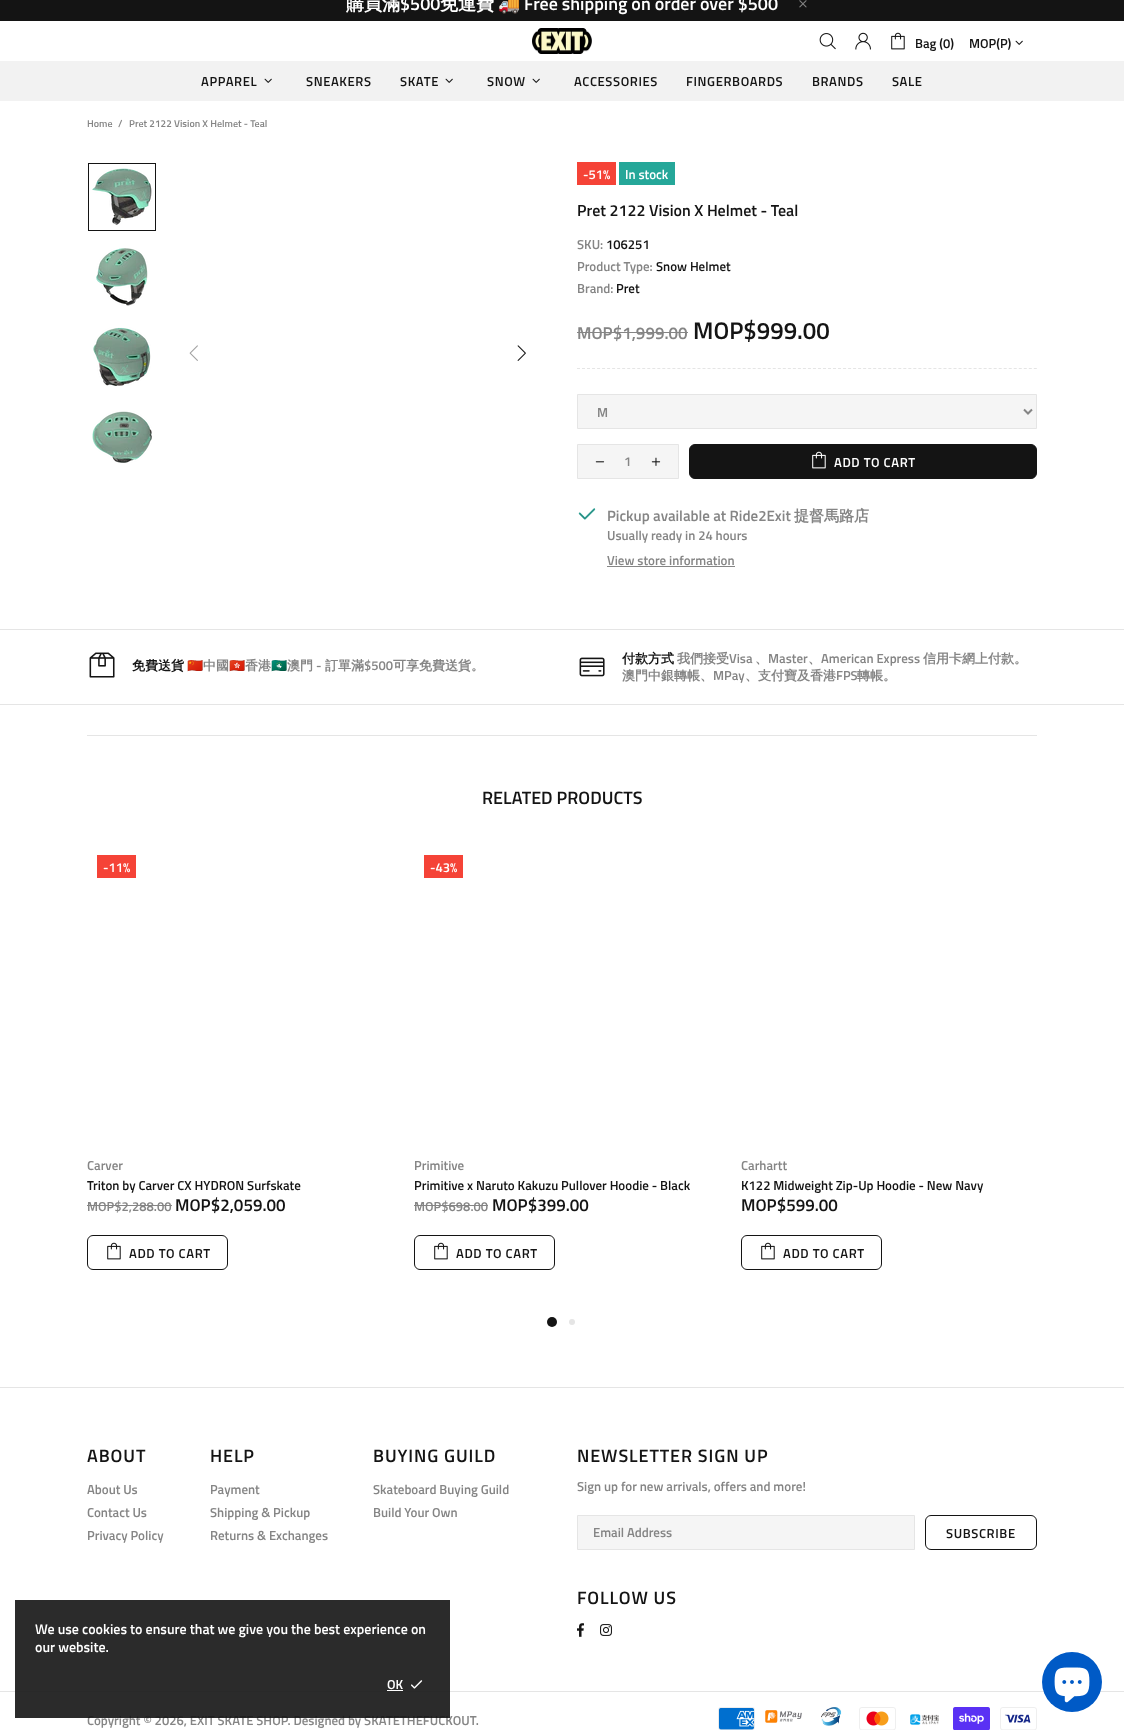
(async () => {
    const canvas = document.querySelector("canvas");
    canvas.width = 1124;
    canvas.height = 1733;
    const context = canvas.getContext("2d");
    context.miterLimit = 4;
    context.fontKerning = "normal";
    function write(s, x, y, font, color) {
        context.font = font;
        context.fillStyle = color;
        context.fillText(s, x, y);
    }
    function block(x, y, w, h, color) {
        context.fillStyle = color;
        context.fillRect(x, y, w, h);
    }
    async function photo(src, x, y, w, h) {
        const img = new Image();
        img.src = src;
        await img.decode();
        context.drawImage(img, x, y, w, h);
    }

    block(0, 0, 1124, 1733, "rgb(255, 255, 255)");
    block(0, 0, 1124, 21, "rgb(20, 20, 20)");
    write("購買滿", 346, 10, "bold 18px WenQuanYi Zen Hei", "rgb(255, 255, 255)");
    write("$500", 400, 10, "600 18px Titillium Web", "rgb(255, 255, 255)");
    write("免運費", 440, 10, "bold 18px WenQuanYi Zen Hei", "rgb(255, 255, 255)");
    write("🚚", 498, 10, "bold 18px Noto Color Emoji", "rgb(255, 255, 255)");
    write("Free shipping on order over $500", 524, 10, "600 18px Titillium Web", "rgb(255, 255, 255)");
    await photo("media/1.png", 799, 0, 8, 8);
    await photo("media/2.png", 532, 28, 60, 26);
    await photo("media/3.png", 819, 33, 17, 17);
    await photo("media/4.png", 855, 32, 16, 18);
    await photo("media/5.png", 891, 32, 14, 18);
    write("Bag (0)", 915, 48, "600 13px Titillium Web", "rgb(20, 20, 20)");
    write("MOP(P)", 969, 48, "600 13px Titillium Web", "rgb(20, 20, 20)");
    await photo("media/6.png", 1015, 40, 8, 5);
    block(0, 61, 1124, 40, "rgb(242, 242, 242)");
    context.letterSpacing = "0.6px";
    write("APPAREL", 201, 86, "600 13px Titillium Web", "rgb(20, 20, 20)");
    await photo("media/7.png", 264, 78, 8, 5);
    write("SNEAKERS", 306, 86, "600 13px Titillium Web", "rgb(20, 20, 20)");
    write("SKATE", 400, 86, "600 13px Titillium Web", "rgb(20, 20, 20)");
    await photo("media/7.png", 445, 78, 8, 5);
    write("SNOW", 487, 86, "600 13px Titillium Web", "rgb(20, 20, 20)");
    await photo("media/7.png", 532, 78, 8, 5);
    write("ACCESSORIES", 574, 86, "600 13px Titillium Web", "rgb(20, 20, 20)");
    write("FINGERBOARDS", 686, 86, "600 13px Titillium Web", "rgb(20, 20, 20)");
    write("BRANDS", 812, 86, "600 13px Titillium Web", "rgb(20, 20, 20)");
    write("SALE", 892, 86, "600 13px Titillium Web", "rgb(20, 20, 20)");
    context.letterSpacing = "0px";
    write("Home", 87, 127, "600 10px Titillium Web", "rgb(133, 133, 133)");
    write("/", 118, 127, "600 10px Titillium Web", "rgb(133, 133, 133)");
    write("Pret 2122 Vision X Helmet - Teal", 129, 127, "600 10px Titillium Web", "rgb(133, 133, 133)");
    await photo("media/8.png", 92, 168, 60, 57);
    context.strokeStyle = "rgb(20, 20, 20)";
    context.strokeRect(88.5, 163.5, 67, 67);
    await photo("media/9.png", 96, 248, 52, 58);
    await photo("media/10.png", 93, 327, 58, 59);
    await photo("media/11.png", 92, 411, 60, 52);
    await photo("media/12.png", 189, 345, 9, 16);
    await photo("media/13.png", 517, 345, 9, 16);
    block(577, 162, 39, 23, "rgb(245, 67, 55)");
    write("-51%", 583, 179, "600 13px Titillium Web", "rgb(255, 255, 255)");
    block(619, 162, 56, 23, "rgb(37, 167, 153)");
    write("In stock", 625, 179, "600 13px Titillium Web", "rgb(255, 255, 255)");
    write("Pret 2122 Vision X Helmet - Teal", 577, 216, "600 16px Titillium Web", "rgb(20, 20, 20)");
    write("SKU:", 577, 249, "600 13px Titillium Web", "rgb(133, 133, 133)");
    write("106251", 606, 249, "600 13px Titillium Web", "rgb(20, 20, 20)");
    write("Product Type:", 577, 271, "600 13px Titillium Web", "rgb(133, 133, 133)");
    write("Snow Helmet", 656, 271, "600 13px Titillium Web", "rgb(20, 20, 20)");
    write("Brand:", 577, 293, "600 13px Titillium Web", "rgb(133, 133, 133)");
    write("Pret", 616, 293, "600 13px Titillium Web", "rgb(20, 20, 20)");
    write("MOP$1,999.00", 577, 339, "600 17px Titillium Web", "rgb(133, 133, 133)");
    block(577, 332, 111, 1, "rgb(133, 133, 133)");
    write("MOP$999.00", 693, 339, "600 24px Titillium Web", "rgb(20, 20, 20)");
    context.beginPath();
    context.moveTo(577, 368.5);
    context.lineTo(1037, 368.5);
    context.strokeStyle = "rgb(229, 229, 229)";
    context.setLineDash([3, 2.02]);
    context.stroke();
    context.fillStyle = "rgb(245, 245, 245)";
    context.beginPath();
    context.rect(577.5, 394.5, 459, 34);
    context.fill();
    context.setLineDash([]);
    context.stroke();
    context.beginPath();
    context.moveTo(1024, 409.5);
    context.lineTo(1028, 413.5);
    context.lineTo(1032, 409.5);
    context.strokeStyle = "rgb(133, 133, 133)";
    context.lineWidth = 2;
    context.stroke();
    write("M", 597, 417, "600 13px Titillium Web", "rgb(133, 133, 133)");
    context.fillStyle = "rgb(245, 245, 245)";
    context.beginPath();
    context.rect(577.5, 444.5, 101, 34);
    context.fill();
    context.strokeStyle = "rgb(229, 229, 229)";
    context.lineWidth = 1;
    context.stroke();
    await photo("media/14.png", 595, 461, 10, 2);
    write("1", 624, 466, "600 13px Titillium Web", "rgb(133, 133, 133)");
    await photo("media/15.png", 651, 457, 10, 9);
    context.fillStyle = "rgb(20, 20, 20)";
    context.beginPath();
    context.roundRect(689.5, 444.5, 347, 34, 5.5);
    context.fill();
    context.strokeStyle = "rgb(20, 20, 20)";
    context.stroke();
    await photo("media/16.png", 812, 451, 14, 18);
    context.letterSpacing = "0.6px";
    write("ADD TO CART", 834, 467, "600 13px Titillium Web", "rgb(255, 255, 255)");
    await photo("media/17.png", 578, 508, 18, 12);
    context.letterSpacing = "0px";
    write("Pickup available at Ride2Exit", 607, 521, "600 15px Titillium Web", "rgb(133, 133, 133)");
    write("提督馬路店", 794, 521, "bold 15px WenQuanYi Zen Hei", "rgb(133, 133, 133)");
    write("Usually ready in 24 hours", 607, 540, "600 13px Titillium Web", "rgb(133, 133, 133)");
    write("View store information", 607, 565, "600 13px Titillium Web", "rgb(133, 133, 133)");
    block(607, 566, 128, 1, "rgb(133, 133, 133)");
    block(0, 629, 1124, 1, "rgb(229, 229, 229)");
    block(0, 704, 1124, 1, "rgb(229, 229, 229)");
    await photo("media/18.png", 89, 652, 26, 26);
    write("免費送貨", 132, 670, "bold 13px WenQuanYi Zen Hei", "rgb(20, 20, 20)");
    write("🇨🇳", 187, 670, "bold 13px Noto Color Emoji", "rgb(133, 133, 133)");
    write("中國", 203, 670, "bold 13px WenQuanYi Zen Hei", "rgb(133, 133, 133)");
    write("🇭🇰", 229, 670, "bold 13px Noto Color Emoji", "rgb(133, 133, 133)");
    write("香港", 245, 670, "bold 13px WenQuanYi Zen Hei", "rgb(133, 133, 133)");
    write("🇲🇴", 271, 670, "bold 13px Noto Color Emoji", "rgb(133, 133, 133)");
    write("澳門", 287, 670, "bold 13px WenQuanYi Zen Hei", "rgb(133, 133, 133)");
    write("-", 316, 670, "600 13px Titillium Web", "rgb(133, 133, 133)");
    write("訂單滿", 325, 670, "bold 13px WenQuanYi Zen Hei", "rgb(133, 133, 133)");
    write("$500", 364, 670, "600 13px Titillium Web", "rgb(133, 133, 133)");
    write("可享免費送貨。", 393, 670, "bold 13px WenQuanYi Zen Hei", "rgb(133, 133, 133)");
    await photo("media/19.png", 579, 657, 26, 20);
    write("付款方式", 622, 663, "bold 13px WenQuanYi Zen Hei", "rgb(20, 20, 20)");
    write("我們接受", 677, 663, "bold 13px WenQuanYi Zen Hei", "rgb(133, 133, 133)");
    write("Visa", 729, 663, "600 13px Titillium Web", "rgb(133, 133, 133)");
    write("、", 755, 663, "bold 13px WenQuanYi Zen Hei", "rgb(133, 133, 133)");
    write("Master", 768, 663, "600 13px Titillium Web", "rgb(133, 133, 133)");
    write("、", 808, 663, "bold 13px WenQuanYi Zen Hei", "rgb(133, 133, 133)");
    write("American Express", 821, 663, "600 13px Titillium Web", "rgb(133, 133, 133)");
    write("信用卡網上付款。", 923, 663, "bold 13px WenQuanYi Zen Hei", "rgb(133, 133, 133)");
    write("澳門中銀轉帳、", 622, 680, "bold 13px WenQuanYi Zen Hei", "rgb(133, 133, 133)");
    write("MPay", 713, 680, "600 13px Titillium Web", "rgb(133, 133, 133)");
    write("、支付寶及香港", 745, 680, "bold 13px WenQuanYi Zen Hei", "rgb(133, 133, 133)");
    write("FPS", 836, 680, "600 13px Titillium Web", "rgb(133, 133, 133)");
    write("轉帳。", 857, 680, "bold 13px WenQuanYi Zen Hei", "rgb(133, 133, 133)");
    block(87, 735, 950, 1, "rgb(229, 229, 229)");
    write("RELATED PRODUCTS", 482, 804, "600 18px Titillium Web", "rgb(20, 20, 20)");
    block(97, 855, 39, 23, "rgb(245, 67, 55)");
    write("-11%", 103, 872, "600 13px Titillium Web", "rgb(255, 255, 255)");
    write("Carver", 87, 1170, "600 13px Titillium Web", "rgb(133, 133, 133)");
    write("Triton by Carver CX HYDRON Surfskate", 87, 1190, "600 13px Titillium Web", "rgb(20, 20, 20)");
    write("MOP$2,288.00", 87, 1211, "600 13px Titillium Web", "rgb(133, 133, 133)");
    block(87, 1205, 85, 1, "rgb(133, 133, 133)");
    write("MOP$2,059.00", 175, 1211, "600 17px Titillium Web", "rgb(20, 20, 20)");
    context.beginPath();
    context.roundRect(87.5, 1235.5, 140, 34, 5.5);
    context.stroke();
    await photo("media/5.png", 107, 1242, 14, 18);
    context.letterSpacing = "0.6px";
    write("ADD TO CART", 129, 1258, "600 13px Titillium Web", "rgb(20, 20, 20)");
    block(424, 855, 39, 23, "rgb(245, 67, 55)");
    context.letterSpacing = "0px";
    write("-43%", 430, 872, "600 13px Titillium Web", "rgb(255, 255, 255)");
    write("Primitive", 414, 1170, "600 13px Titillium Web", "rgb(133, 133, 133)");
    write("Primitive x Naruto Kakuzu Pullover Hoodie - Black", 414, 1190, "600 13px Titillium Web", "rgb(20, 20, 20)");
    write("MOP$698.00", 414, 1211, "600 13px Titillium Web", "rgb(133, 133, 133)");
    block(414, 1205, 74, 1, "rgb(133, 133, 133)");
    write("MOP$399.00", 492, 1211, "600 17px Titillium Web", "rgb(20, 20, 20)");
    context.beginPath();
    context.roundRect(414.5, 1235.5, 140, 34, 5.5);
    context.stroke();
    await photo("media/5.png", 434, 1242, 14, 18);
    context.letterSpacing = "0.6px";
    write("ADD TO CART", 456, 1258, "600 13px Titillium Web", "rgb(20, 20, 20)");
    context.letterSpacing = "0px";
    write("Carhartt", 741, 1170, "600 13px Titillium Web", "rgb(133, 133, 133)");
    write("K122 Midweight Zip-Up Hoodie - New Navy", 741, 1190, "600 13px Titillium Web", "rgb(20, 20, 20)");
    write("MOP$599.00", 741, 1211, "600 17px Titillium Web", "rgb(20, 20, 20)");
    context.beginPath();
    context.roundRect(741.5, 1235.5, 140, 34, 5.5);
    context.stroke();
    await photo("media/5.png", 761, 1242, 14, 18);
    context.letterSpacing = "0.6px";
    write("ADD TO CART", 783, 1258, "600 13px Titillium Web", "rgb(20, 20, 20)");
    context.beginPath();
    context.arc(552, 1322, 5, 0, Math.PI * 2);
    context.fill();
    context.fillStyle = "rgb(229, 229, 229)";
    context.beginPath();
    context.arc(572, 1322, 3, 0, Math.PI * 2);
    context.fill();
    block(0, 1387, 1124, 1, "rgb(229, 229, 229)");
    context.letterSpacing = "0.9px";
    write("ABOUT", 87, 1462, "600 18px Titillium Web", "rgb(20, 20, 20)");
    context.letterSpacing = "0px";
    write("About Us", 87, 1494, "600 13px Titillium Web", "rgb(133, 133, 133)");
    write("Contact Us", 87, 1517, "600 13px Titillium Web", "rgb(133, 133, 133)");
    write("Privacy Policy", 87, 1540, "600 13px Titillium Web", "rgb(133, 133, 133)");
    context.letterSpacing = "0.9px";
    write("HELP", 210, 1462, "600 18px Titillium Web", "rgb(20, 20, 20)");
    context.letterSpacing = "0px";
    write("Payment", 210, 1494, "600 13px Titillium Web", "rgb(133, 133, 133)");
    write("Shipping & Pickup", 210, 1517, "600 13px Titillium Web", "rgb(133, 133, 133)");
    write("Returns & Exchanges", 210, 1540, "600 13px Titillium Web", "rgb(133, 133, 133)");
    context.letterSpacing = "0.9px";
    write("BUYING GUILD", 373, 1462, "600 18px Titillium Web", "rgb(20, 20, 20)");
    context.letterSpacing = "0px";
    write("Skateboard Buying Guild", 373, 1494, "600 13px Titillium Web", "rgb(133, 133, 133)");
    write("Build Your Own", 373, 1517, "600 13px Titillium Web", "rgb(133, 133, 133)");
    context.letterSpacing = "0.9px";
    write("NEWSLETTER SIGN UP", 577, 1462, "600 18px Titillium Web", "rgb(20, 20, 20)");
    context.letterSpacing = "0px";
    write("Sign up for new arrivals, offers and more!", 577, 1491, "600 13px Titillium Web", "rgb(133, 133, 133)");
    context.fillStyle = "rgb(245, 245, 245)";
    context.beginPath();
    context.rect(577.5, 1515.5, 337, 34);
    context.fill();
    context.strokeStyle = "rgb(229, 229, 229)";
    context.stroke();
    write("Email Address", 593, 1537, "600 13px Titillium Web", "rgb(133, 133, 133)");
    context.beginPath();
    context.roundRect(925.5, 1515.5, 111, 34, 5.5);
    context.strokeStyle = "rgb(20, 20, 20)";
    context.stroke();
    context.letterSpacing = "0.6px";
    write("SUBSCRIBE", 946, 1538, "600 13px Titillium Web", "rgb(20, 20, 20)");
    context.letterSpacing = "0.9px";
    write("FOLLOW US", 577, 1604, "600 18px Titillium Web", "rgb(20, 20, 20)");
    await photo("media/20.png", 577, 1623, 7, 14);
    await photo("media/21.png", 600, 1624, 12, 12);
    block(0, 1691, 1124, 1, "rgb(229, 229, 229)");
    context.letterSpacing = "0px";
    write("Copyright © 2026, EXIT SKATE SHOP. Designed by SKATETHEFUCKOUT.", 87, 1725, "600 13px Titillium Web", "rgb(133, 133, 133)");
    await photo("media/22.png", 718, 1707, 37, 23);
    await photo("media/23.png", 765, 1710, 37, 13);
    await photo("media/24.png", 821, 1707, 21, 19);
    await photo("media/25.png", 859, 1707, 37, 23);
    await photo("media/26.png", 910, 1714, 29, 11);
    await photo("media/27.png", 953, 1707, 37, 23);
    await photo("media/28.png", 1000, 1707, 37, 23);
    block(15, 1600, 435, 118, "rgba(20, 20, 20, 0.9)");
    write("We use cookies to ensure that we give you the best experience on", 35, 1634, "600 14px Titillium Web", "rgb(255, 255, 255)");
    write("our website.", 35, 1652, "600 14px Titillium Web", "rgb(255, 255, 255)");
    write("OK", 387, 1689, "600 13px Titillium Web", "rgb(255, 255, 255)");
    block(387, 1690, 16, 1, "rgb(255, 255, 255)");
    await photo("media/29.png", 411, 1680, 12, 9);
    context.fillStyle = "rgb(0, 90, 198)";
    context.beginPath();
    context.arc(1072, 1682, 30, 0, Math.PI * 2);
    context.fill();
    await photo("media/30.png", 1054, 1667, 36, 36);
})();
